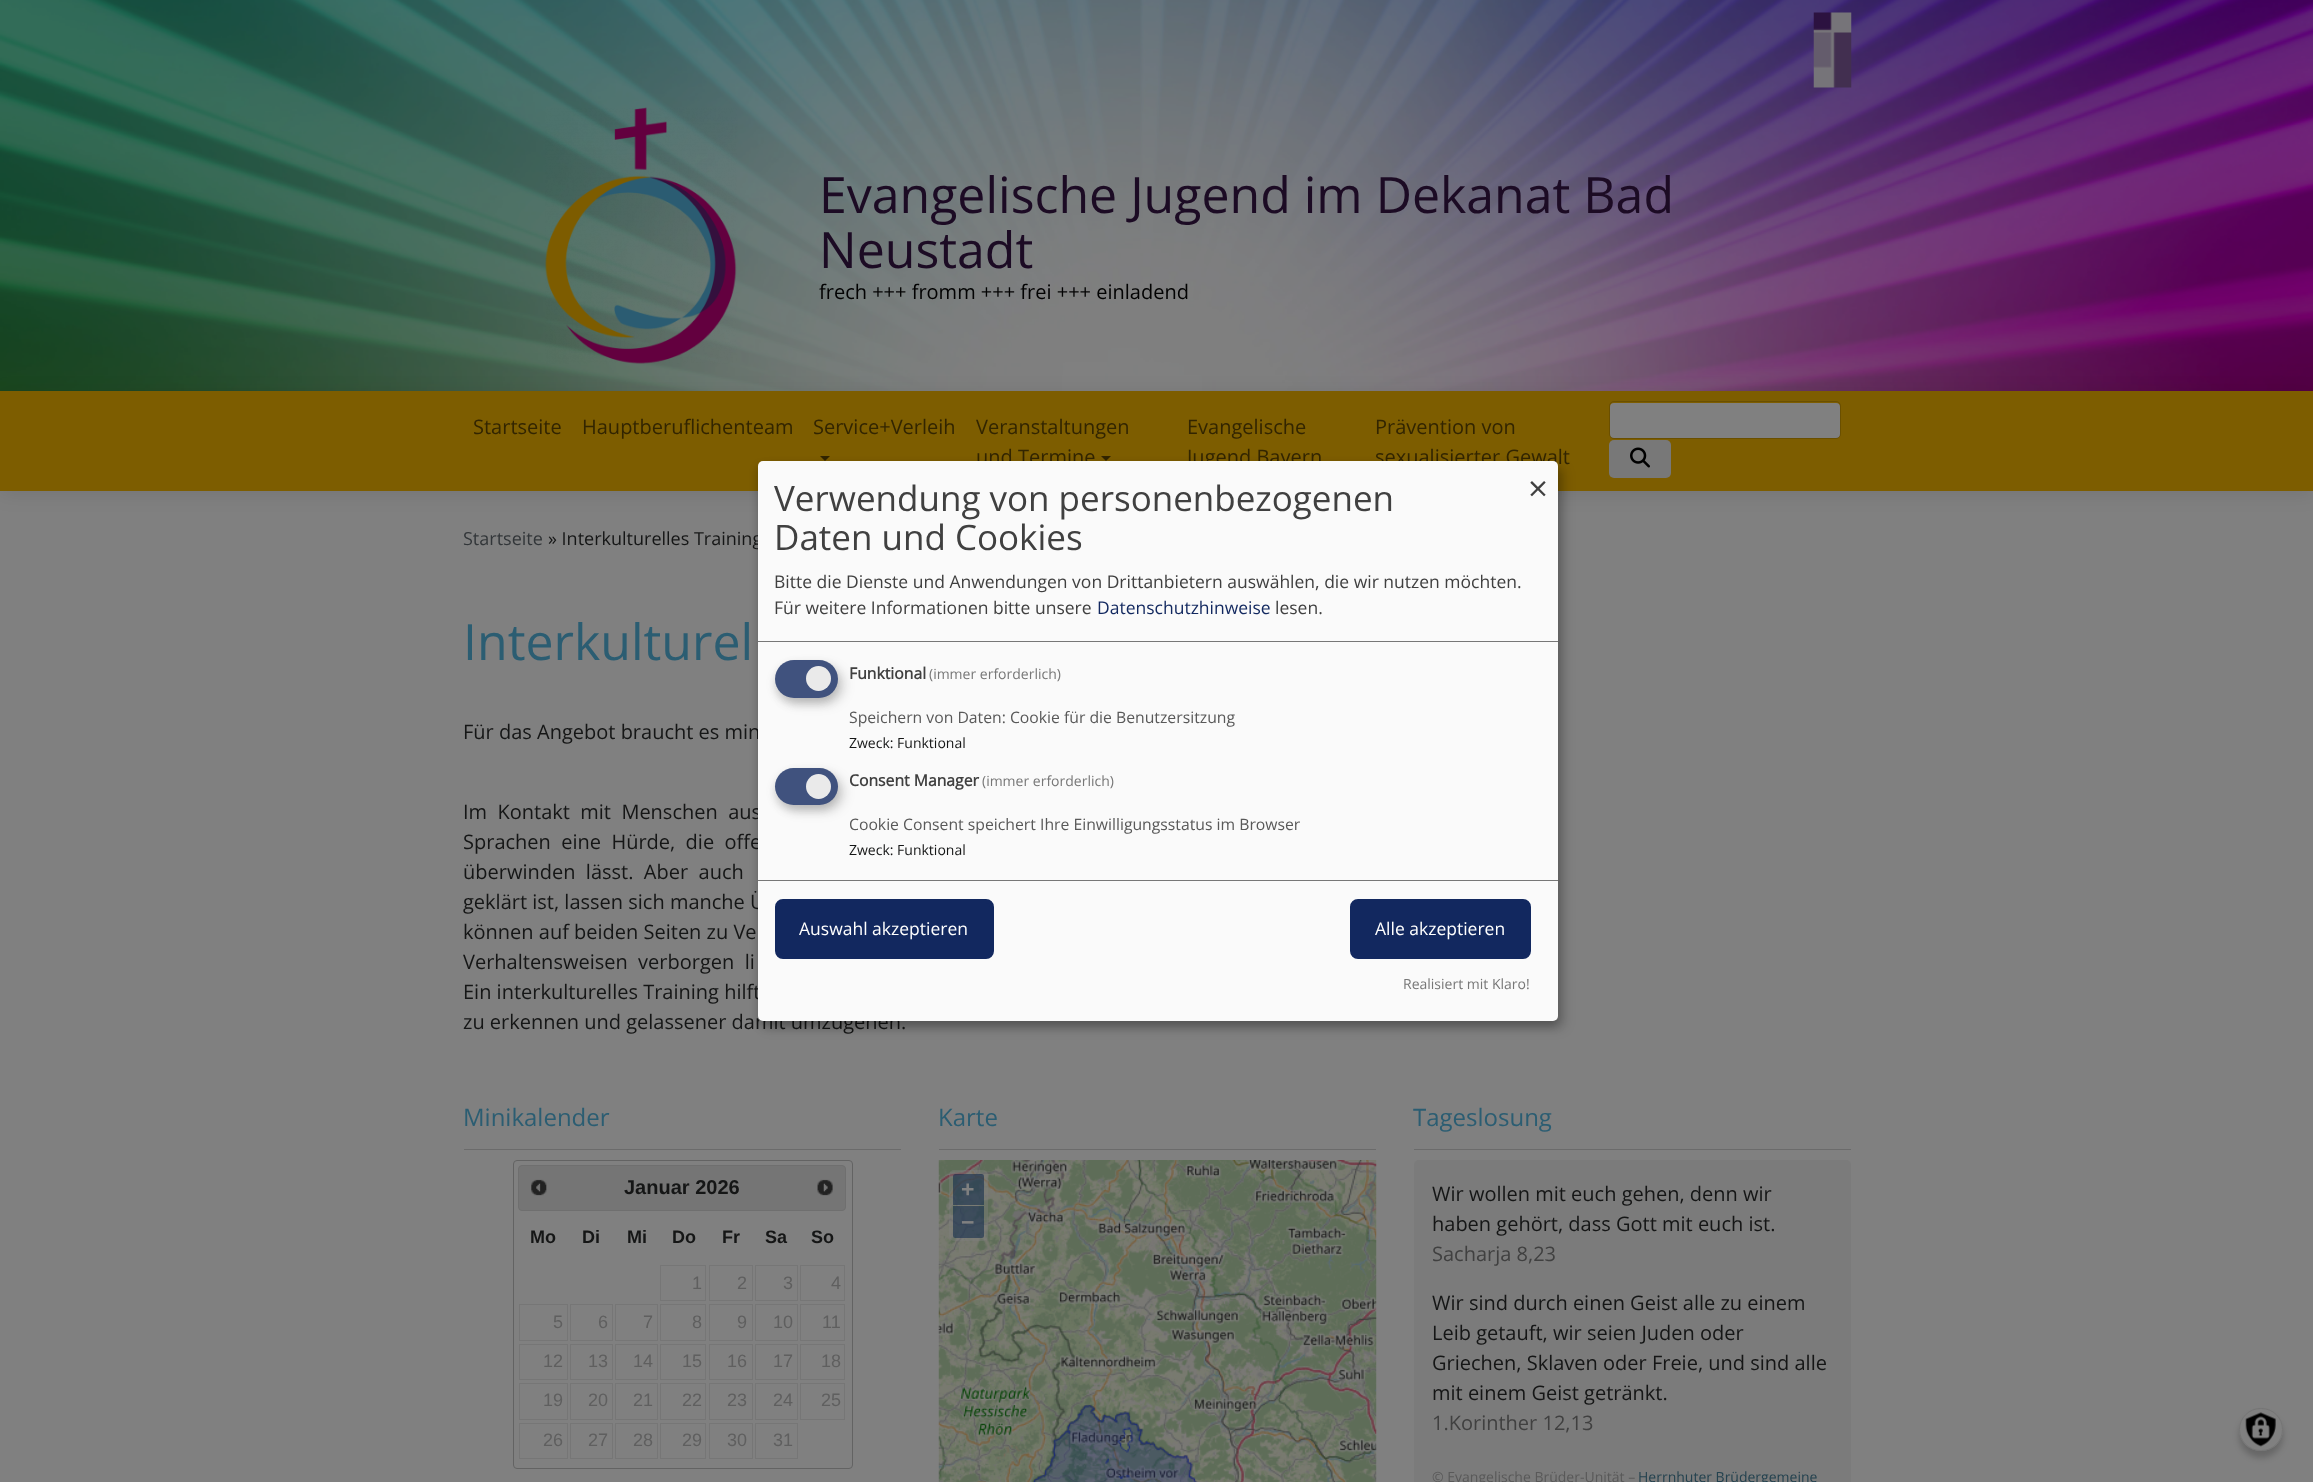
(async () => {
    const canvas = document.querySelector("canvas");
    canvas.width = 2313;
    canvas.height = 1482;
    const context = canvas.getContext("2d");
    context.miterLimit = 4;
    context.fontKerning = "normal";
    function write(s, x, y, font, color) {
        context.font = font;
        context.fillStyle = color;
        context.fillText(s, x, y);
    }
    function block(x, y, w, h, color) {
        context.fillStyle = color;
        context.fillRect(x, y, w, h);
    }
    function card(x, y, w, h, r, color) {
        context.fillStyle = color;
        context.beginPath();
        context.roundRect(x, y, w, h, r);
        context.fill();
    }
    async function photo(src, x, y, w, h) {
        const img = new Image();
        img.src = src;
        await img.decode();
        context.drawImage(img, x, y, w, h);
    }

    block(0, 0, 2313, 1482, "rgb(128, 128, 128)");
    await photo("media/1.png", 0, 0, 2313, 391);
    await photo("media/2.png", 1813, 12, 39, 76);
    await photo("media/3.png", 545, 107, 192, 257);
    write("Evangelische Jugend im Dekanat Bad", 819, 213, "50px Open Sans", "rgb(28, 11, 36)");
    write("Neustadt", 819, 268, "50px Open Sans", "rgb(28, 11, 36)");
    write("frech +++ fromm +++ frei +++ einladend", 819, 299, "20px Open Sans", "rgb(2, 2, 2)");
    context.fillStyle = "rgba(0, 0, 0, 0.09)";
    context.filter = "blur(9.5px)";
    context.beginPath();
    context.rect(0, 394, 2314, 100);
    context.fill();
    context.filter = "none";
    block(0, 391, 2313, 100, "rgb(125, 93, 0)");
    write("Startseite", 473, 434, "20px Open Sans", "rgb(50, 37, 0)");
    write("Hauptberuflichenteam", 582, 434, "20px Open Sans", "rgb(50, 37, 0)");
    write("Service+Verleih", 813, 434, "20px Open Sans", "rgb(50, 37, 0)");
    context.beginPath();
    context.moveTo(820, 456);
    context.lineTo(830, 456);
    context.lineTo(825, 461);
    context.closePath();
    context.fill();
    write("Veranstaltungen", 976, 434, "20px Open Sans", "rgb(50, 37, 0)");
    write("und Termine", 976, 464, "20px Open Sans", "rgb(50, 37, 0)");
    context.beginPath();
    context.moveTo(1101, 456);
    context.lineTo(1111, 456);
    context.lineTo(1106, 461);
    context.closePath();
    context.fill();
    write("Evangelische", 1187, 434, "20px Open Sans", "rgb(50, 37, 0)");
    write("Jugend Bayern", 1187, 464, "20px Open Sans", "rgb(50, 37, 0)");
    write("Prävention von", 1375, 434, "20px Open Sans", "rgb(50, 37, 0)");
    write("sexualisierter Gewalt", 1375, 464, "20px Open Sans", "rgb(50, 37, 0)");
    card(1610, 403, 230, 35, 4, "rgb(128, 128, 128)");
    context.beginPath();
    context.roundRect(1609.5, 401.5, 231, 37, 4.5);
    context.strokeStyle = "rgba(0, 0, 0, 0.15)";
    context.stroke();
    card(1609, 440, 62, 38, 5, "rgb(120, 120, 120)");
    await photo("media/4.png", 1630, 447, 20, 21);
    write("Startseite", 463, 545, "18px Open Sans", "rgb(50, 54, 57)");
    write("» Interkulturelles Training", 548, 545, "18px Open Sans", "rgb(21, 22, 22)");
    write("Interkulturel", 463, 660, "50px Open Sans", "rgb(43, 93, 114)");
    write("Für das Angebot braucht es min", 463, 739, "20px Open Sans", "rgb(21, 22, 22)");
    write("Im  Kontakt  mit  Menschen  aus", 463, 819, "20px Open Sans", "rgb(21, 22, 22)");
    write("Sprachen  eine  Hürde,  die  offe", 463, 849, "20px Open Sans", "rgb(21, 22, 22)");
    write("überwinden  lässt.  Aber  auch", 463, 879, "20px Open Sans", "rgb(21, 22, 22)");
    write("geklärt ist, lassen sich manche Ü", 463, 909, "20px Open Sans", "rgb(21, 22, 22)");
    write("können auf beiden Seiten zu Ve", 463, 939, "20px Open Sans", "rgb(21, 22, 22)");
    write("Verhaltensweisen  verborgen  li", 463, 969, "20px Open Sans", "rgb(21, 22, 22)");
    write("Ein interkulturelles Training hilft", 463, 999, "20px Open Sans", "rgb(21, 22, 22)");
    write("zu erkennen und gelassener damit umzugehen.", 463, 1029, "20px Open Sans", "rgb(21, 22, 22)");
    block(464, 1149, 437, 1, "rgb(107, 107, 107)");
    write("Minikalender", 463, 1126, "24px Open Sans", "rgb(43, 93, 114)");
    context.beginPath();
    context.roundRect(513.5, 1160.5, 339, 308, 3.5);
    context.strokeStyle = "rgb(99, 99, 99)";
    context.stroke();
    context.fillStyle = "rgb(117, 117, 117)";
    context.beginPath();
    context.roundRect(518.5, 1165.5, 327, 45, 3.5);
    context.fill();
    context.strokeStyle = "rgb(111, 111, 111)";
    context.stroke();
    await photo("media/5.png", 531, 1179, 16, 17);
    write("Januar 2026", 624, 1194, "bold 20px Liberation Sans", "rgb(21, 22, 22)");
    await photo("media/6.png", 817, 1179, 16, 17);
    write("Mo", 530, 1243, "bold 18px Liberation Sans", "rgb(21, 22, 22)");
    write("Di", 582, 1243, "bold 18px Liberation Sans", "rgb(21, 22, 22)");
    write("Mi", 627, 1243, "bold 18px Liberation Sans", "rgb(21, 22, 22)");
    write("Do", 672, 1243, "bold 18px Liberation Sans", "rgb(21, 22, 22)");
    write("Fr", 722, 1243, "bold 18px Liberation Sans", "rgb(21, 22, 22)");
    write("Sa", 765, 1243, "bold 18px Liberation Sans", "rgb(21, 22, 22)");
    write("So", 811, 1243, "bold 18px Liberation Sans", "rgb(21, 22, 22)");
    context.strokeStyle = "rgb(118, 118, 118)";
    context.strokeRect(660.5, 1265.5, 45, 35);
    write("1", 692, 1289, "18px Liberation Sans", "rgb(95, 95, 95)");
    context.strokeRect(709.5, 1265.5, 43, 35);
    write("2", 737, 1289, "18px Liberation Sans", "rgb(95, 95, 95)");
    context.strokeRect(755.5, 1265.5, 42, 35);
    write("3", 783, 1289, "18px Liberation Sans", "rgb(95, 95, 95)");
    context.strokeRect(800.5, 1265.5, 44, 35);
    write("4", 831, 1289, "18px Liberation Sans", "rgb(95, 95, 95)");
    context.strokeRect(519.5, 1304.5, 48, 36);
    write("5", 553, 1328, "18px Liberation Sans", "rgb(95, 95, 95)");
    context.strokeRect(570.5, 1304.5, 42, 36);
    write("6", 598, 1328, "18px Liberation Sans", "rgb(95, 95, 95)");
    context.strokeRect(615.5, 1304.5, 42, 36);
    write("7", 643, 1328, "18px Liberation Sans", "rgb(95, 95, 95)");
    context.strokeRect(660.5, 1304.5, 45, 36);
    write("8", 692, 1328, "18px Liberation Sans", "rgb(95, 95, 95)");
    context.strokeRect(709.5, 1304.5, 43, 36);
    write("9", 737, 1328, "18px Liberation Sans", "rgb(95, 95, 95)");
    context.strokeRect(755.5, 1304.5, 42, 36);
    write("10", 773, 1328, "18px Liberation Sans", "rgb(95, 95, 95)");
    context.strokeRect(800.5, 1304.5, 44, 36);
    write("11", 822, 1328, "18px Liberation Sans", "rgb(95, 95, 95)");
    context.strokeRect(519.5, 1344.5, 48, 35);
    write("12", 543, 1367, "18px Liberation Sans", "rgb(95, 95, 95)");
    context.strokeRect(570.5, 1344.5, 42, 35);
    write("13", 588, 1367, "18px Liberation Sans", "rgb(95, 95, 95)");
    context.strokeRect(615.5, 1344.5, 42, 35);
    write("14", 633, 1367, "18px Liberation Sans", "rgb(95, 95, 95)");
    context.strokeRect(660.5, 1344.5, 45, 35);
    write("15", 682, 1367, "18px Liberation Sans", "rgb(95, 95, 95)");
    context.strokeRect(709.5, 1344.5, 43, 35);
    write("16", 727, 1367, "18px Liberation Sans", "rgb(95, 95, 95)");
    context.strokeRect(755.5, 1344.5, 42, 35);
    write("17", 773, 1367, "18px Liberation Sans", "rgb(95, 95, 95)");
    context.strokeRect(800.5, 1344.5, 44, 35);
    write("18", 821, 1367, "18px Liberation Sans", "rgb(95, 95, 95)");
    context.strokeRect(519.5, 1383.5, 48, 36);
    write("19", 543, 1406, "18px Liberation Sans", "rgb(95, 95, 95)");
    context.strokeRect(570.5, 1383.5, 42, 36);
    write("20", 588, 1406, "18px Liberation Sans", "rgb(95, 95, 95)");
    context.strokeRect(615.5, 1383.5, 42, 36);
    write("21", 633, 1406, "18px Liberation Sans", "rgb(95, 95, 95)");
    context.strokeRect(660.5, 1383.5, 45, 36);
    write("22", 682, 1406, "18px Liberation Sans", "rgb(95, 95, 95)");
    context.strokeRect(709.5, 1383.5, 43, 36);
    write("23", 727, 1406, "18px Liberation Sans", "rgb(95, 95, 95)");
    context.strokeRect(755.5, 1383.5, 42, 36);
    write("24", 773, 1406, "18px Liberation Sans", "rgb(95, 95, 95)");
    context.strokeRect(800.5, 1383.5, 44, 36);
    write("25", 821, 1406, "18px Liberation Sans", "rgb(95, 95, 95)");
    context.strokeRect(519.5, 1423.5, 48, 35);
    write("26", 543, 1446, "18px Liberation Sans", "rgb(95, 95, 95)");
    context.strokeRect(570.5, 1423.5, 42, 35);
    write("27", 588, 1446, "18px Liberation Sans", "rgb(95, 95, 95)");
    context.strokeRect(615.5, 1423.5, 42, 35);
    write("28", 633, 1446, "18px Liberation Sans", "rgb(95, 95, 95)");
    context.strokeRect(660.5, 1423.5, 45, 35);
    write("29", 682, 1446, "18px Liberation Sans", "rgb(95, 95, 95)");
    context.strokeRect(709.5, 1423.5, 43, 35);
    write("30", 727, 1446, "18px Liberation Sans", "rgb(95, 95, 95)");
    context.strokeRect(755.5, 1423.5, 42, 35);
    write("31", 773, 1446, "18px Liberation Sans", "rgb(95, 95, 95)");
    block(939, 1149, 437, 1, "rgb(107, 107, 107)");
    write("Karte", 938, 1126, "24px Open Sans", "rgb(43, 93, 114)");
    await photo("media/7.png", 938, 1160, 439, 322);
    card(949, 1170, 39, 71, 5, "rgba(128, 128, 128, 0.4)");
    context.fillStyle = "rgba(0, 30, 68, 0.5)";
    context.beginPath();
    context.roundRect(953, 1174, 31, 31, [2.5, 2.5, 0, 0]);
    context.fill();
    write("+", 961, 1197, "bold 23px Liberation Sans", "rgb(128, 128, 128)");
    context.fillStyle = "rgba(0, 30, 68, 0.5)";
    context.beginPath();
    context.roundRect(953, 1206, 31, 32, [0, 0, 2.5, 2.5]);
    context.fill();
    write("−", 961, 1230, "bold 23px Liberation Sans", "rgb(128, 128, 128)");
    block(1414, 1149, 437, 1, "rgb(107, 107, 107)");
    write("Tageslosung", 1413, 1126, "24px Open Sans", "rgb(43, 93, 114)");
    card(1414, 1160, 437, 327, 5, "rgb(123, 123, 123)");
    write("Wir wollen mit euch gehen, denn wir", 1432, 1201, "20px Open Sans", "rgb(21, 22, 22)");
    write("haben gehört, dass Gott mit euch ist.", 1432, 1231, "20px Open Sans", "rgb(21, 22, 22)");
    write("Sacharja 8,23", 1432, 1261, "20px Open Sans", "rgb(64, 64, 64)");
    write("Wir sind durch einen Geist alle zu einem", 1432, 1310, "20px Open Sans", "rgb(21, 22, 22)");
    write("Leib getauft, wir seien Juden oder", 1432, 1340, "20px Open Sans", "rgb(21, 22, 22)");
    write("Griechen, Sklaven oder Freie, und sind alle", 1432, 1370, "20px Open Sans", "rgb(21, 22, 22)");
    write("mit einem Geist getränkt.", 1432, 1400, "20px Open Sans", "rgb(21, 22, 22)");
    write("1.Korinther 12,13", 1432, 1430, "20px Open Sans", "rgb(64, 64, 64)");
    write("© Evangelische Brüder-Unität –", 1432, 1482, "14px Open Sans", "rgb(89, 89, 89)");
    write("Herrnhuter Brüdergemeine", 1638, 1482, "14px Open Sans", "rgb(36, 66, 79)");
    context.fillStyle = "rgba(0, 0, 0, 0.19)";
    context.filter = "blur(6px)";
    context.beginPath();
    context.roundRect(764, 468, 800, 560, 5);
    context.fill();
    context.filter = "none";
    context.fillStyle = "rgba(0, 0, 0, 0.2)";
    context.filter = "blur(4px)";
    context.beginPath();
    context.roundRect(758, 466, 800, 560, 5);
    context.fill();
    context.filter = "none";
    card(758, 461, 800, 560, 5, "rgb(250, 250, 250)");
    block(758, 641, 800, 1, "rgb(119, 119, 119)");
    write("Verwendung von personenbezogenen", 774, 511, "35px Open Sans", "rgb(64, 64, 64)");
    write("Daten und Cookies", 774, 550, "35px Open Sans", "rgb(64, 64, 64)");
    write("Bitte die Dienste und Anwendungen von Drittanbietern auswählen, die wir nutzen möchten.", 774, 588, "17.5px Open Sans", "rgb(64, 64, 64)");
    write("Für weitere Informationen bitte unsere", 774, 614, "17.5px Open Sans", "rgb(64, 64, 64)");
    write("Datenschutzhinweise", 1097, 614, "17.5px Open Sans", "rgb(18, 40, 95)");
    write("lesen.", 1275, 614, "17.5px Open Sans", "rgb(64, 64, 64)");
    write("×", 1528, 501, "35px Open Sans", "rgb(64, 64, 64)");
    context.fillStyle = "rgba(0, 0, 0, 0.15)";
    context.filter = "blur(6px)";
    context.beginPath();
    context.roundRect(781, 666, 63, 38, 19);
    context.fill();
    context.filter = "none";
    context.fillStyle = "rgba(50, 50, 50, 0.2)";
    context.filter = "blur(4px)";
    context.beginPath();
    context.roundRect(775, 665, 63, 38, 19);
    context.fill();
    context.filter = "none";
    card(775, 660, 63, 38, 19, "rgb(64, 82, 126)");
    context.fillStyle = "rgb(234, 234, 234)";
    context.beginPath();
    context.arc(818.5, 678.5, 12.5, 0, Math.PI * 2);
    context.fill();
    write("Funktional", 849, 679, "bold 15.75px Open Sans", "rgb(64, 64, 64)");
    write("(immer erforderlich)", 929, 679, "14px Open Sans", "rgb(119, 119, 119)");
    write("Speichern von Daten: Cookie für die Benutzersitzung", 849, 723, "15.75px Open Sans", "rgb(89, 89, 89)");
    write("Zweck: Funktional", 849, 748, "14px Open Sans", "rgb(21, 22, 22)");
    context.fillStyle = "rgba(0, 0, 0, 0.15)";
    context.filter = "blur(6px)";
    context.beginPath();
    context.roundRect(781, 774, 63, 37, 18.5);
    context.fill();
    context.filter = "none";
    context.fillStyle = "rgba(50, 50, 50, 0.2)";
    context.filter = "blur(4px)";
    context.beginPath();
    context.roundRect(775, 773, 63, 37, 18.5);
    context.fill();
    context.filter = "none";
    card(775, 768, 63, 37, 18.5, "rgb(64, 82, 126)");
    context.fillStyle = "rgb(234, 234, 234)";
    context.beginPath();
    context.arc(818.5, 786.5, 12.5, 0, Math.PI * 2);
    context.fill();
    write("Consent Manager", 849, 786, "bold 15.75px Open Sans", "rgb(64, 64, 64)");
    write("(immer erforderlich)", 982, 786, "14px Open Sans", "rgb(119, 119, 119)");
    write("Cookie Consent speichert Ihre Einwilligungsstatus im Browser", 849, 830, "15.75px Open Sans", "rgb(89, 89, 89)");
    write("Zweck: Funktional", 849, 855, "14px Open Sans", "rgb(21, 22, 22)");
    block(758, 880, 800, 1, "rgb(119, 119, 119)");
    context.fillStyle = "rgb(18, 40, 95)";
    context.beginPath();
    context.roundRect(777, 901, 215, 56, 6);
    context.fill();
    context.strokeStyle = "rgb(18, 40, 95)";
    context.lineWidth = 4;
    context.stroke();
    write("Auswahl akzeptieren", 799, 935, "17.5px Open Sans", "rgb(255, 255, 255)");
    context.fillStyle = "rgb(18, 40, 95)";
    context.beginPath();
    context.roundRect(1352, 901, 177, 56, 6);
    context.fill();
    context.stroke();
    write("Alle akzeptieren", 1375, 935, "17.5px Open Sans", "rgb(255, 255, 255)");
    write("Realisiert mit Klaro!", 1403, 989, "14px Open Sans", "rgb(119, 119, 119)");
    context.fillStyle = "rgba(0, 0, 0, 0.2)";
    context.filter = "blur(3px)";
    context.beginPath();
    context.roundRect(2239, 1414, 44, 44, 22);
    context.fill();
    context.filter = "none";
    card(2239, 1408, 44, 43, 21.5, "rgb(128, 128, 128)");
    await photo("media/8.png", 2245, 1412, 31, 35);
    context.beginPath();
    context.roundRect(2239.5, 1408.5, 43, 42, 21);
    context.strokeStyle = "rgb(117, 117, 117)";
    context.lineWidth = 1;
    context.stroke();
})();
